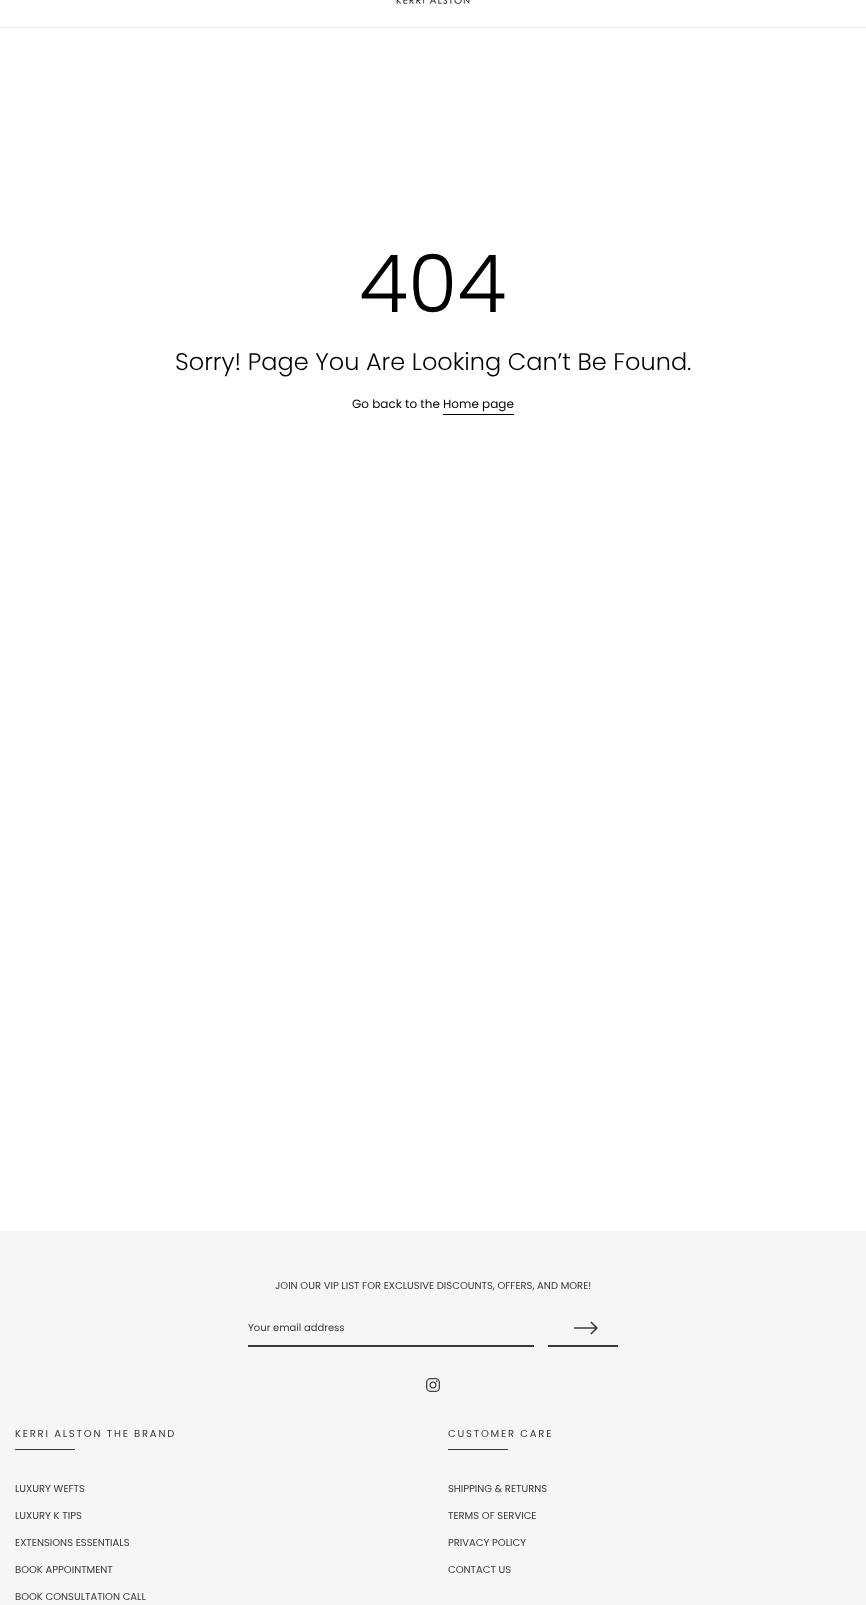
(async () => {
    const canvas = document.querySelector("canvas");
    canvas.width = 866;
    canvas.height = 1605;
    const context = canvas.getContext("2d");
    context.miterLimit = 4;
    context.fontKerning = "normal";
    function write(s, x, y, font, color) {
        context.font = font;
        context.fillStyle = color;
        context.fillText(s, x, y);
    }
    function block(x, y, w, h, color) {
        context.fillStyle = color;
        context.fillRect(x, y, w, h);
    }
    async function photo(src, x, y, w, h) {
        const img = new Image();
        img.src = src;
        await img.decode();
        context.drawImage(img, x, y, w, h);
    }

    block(0, 0, 866, 1605, "rgb(255, 255, 255)");
    block(0, 27, 866, 1, "rgb(237, 237, 237)");
    await photo("media/1.png", 396, 0, 74, 4);
    write("404", 359, 312, "300 80px Poppins", "rgb(0, 0, 0)");
    write("Sorry! Page You Are Looking Can’t Be Found.", 175, 370, "300 24px Poppins", "rgb(0, 0, 0)");
    write("Go back to the Home page", 352, 408, "12px Poppins", "rgb(0, 0, 0)");
    block(443, 414, 71, 1, "rgb(0, 0, 0)");
    block(0, 1231, 866, 374, "rgb(247, 246, 245)");
    write("JOIN OUR VIP LIST FOR EXCLUSIVE DISCOUNTS, OFFERS, AND MORE!", 275, 1289, "10px Poppins", "rgb(56, 56, 56)");
    block(248, 1345, 286, 2, "rgb(56, 56, 56)");
    write("Your email address", 248, 1331, "10px Poppins", "rgb(56, 56, 56)");
    block(548, 1345, 70, 2, "rgb(56, 56, 56)");
    await photo("media/2.png", 574, 1321, 24, 14);
    await photo("media/3.png", 426, 1378, 14, 14);
    context.letterSpacing = "1.8px";
    write("KERRI ALSTON THE BRAND", 15, 1437, "10px Poppins", "rgb(56, 56, 56)");
    block(15, 1449, 60, 1, "rgb(56, 56, 56)");
    context.letterSpacing = "0px";
    write("LUXURY WEFTS", 15, 1492, "10px Poppins", "rgb(56, 56, 56)");
    write("LUXURY K TIPS", 15, 1519, "10px Poppins", "rgb(56, 56, 56)");
    write("EXTENSIONS ESSENTIALS", 15, 1546, "10px Poppins", "rgb(56, 56, 56)");
    write("BOOK APPOINTMENT", 15, 1573, "10px Poppins", "rgb(56, 56, 56)");
    write("BOOK CONSULTATION CALL", 15, 1600, "10px Poppins", "rgb(56, 56, 56)");
    context.letterSpacing = "1.8px";
    write("CUSTOMER CARE", 448, 1437, "10px Poppins", "rgb(56, 56, 56)");
    block(448, 1449, 60, 1, "rgb(56, 56, 56)");
    context.letterSpacing = "0px";
    write("SHIPPING & RETURNS", 448, 1492, "10px Poppins", "rgb(56, 56, 56)");
    write("TERMS OF SERVICE", 448, 1519, "10px Poppins", "rgb(56, 56, 56)");
    write("PRIVACY POLICY", 448, 1546, "10px Poppins", "rgb(56, 56, 56)");
    write("CONTACT US", 448, 1573, "10px Poppins", "rgb(56, 56, 56)");
})();
